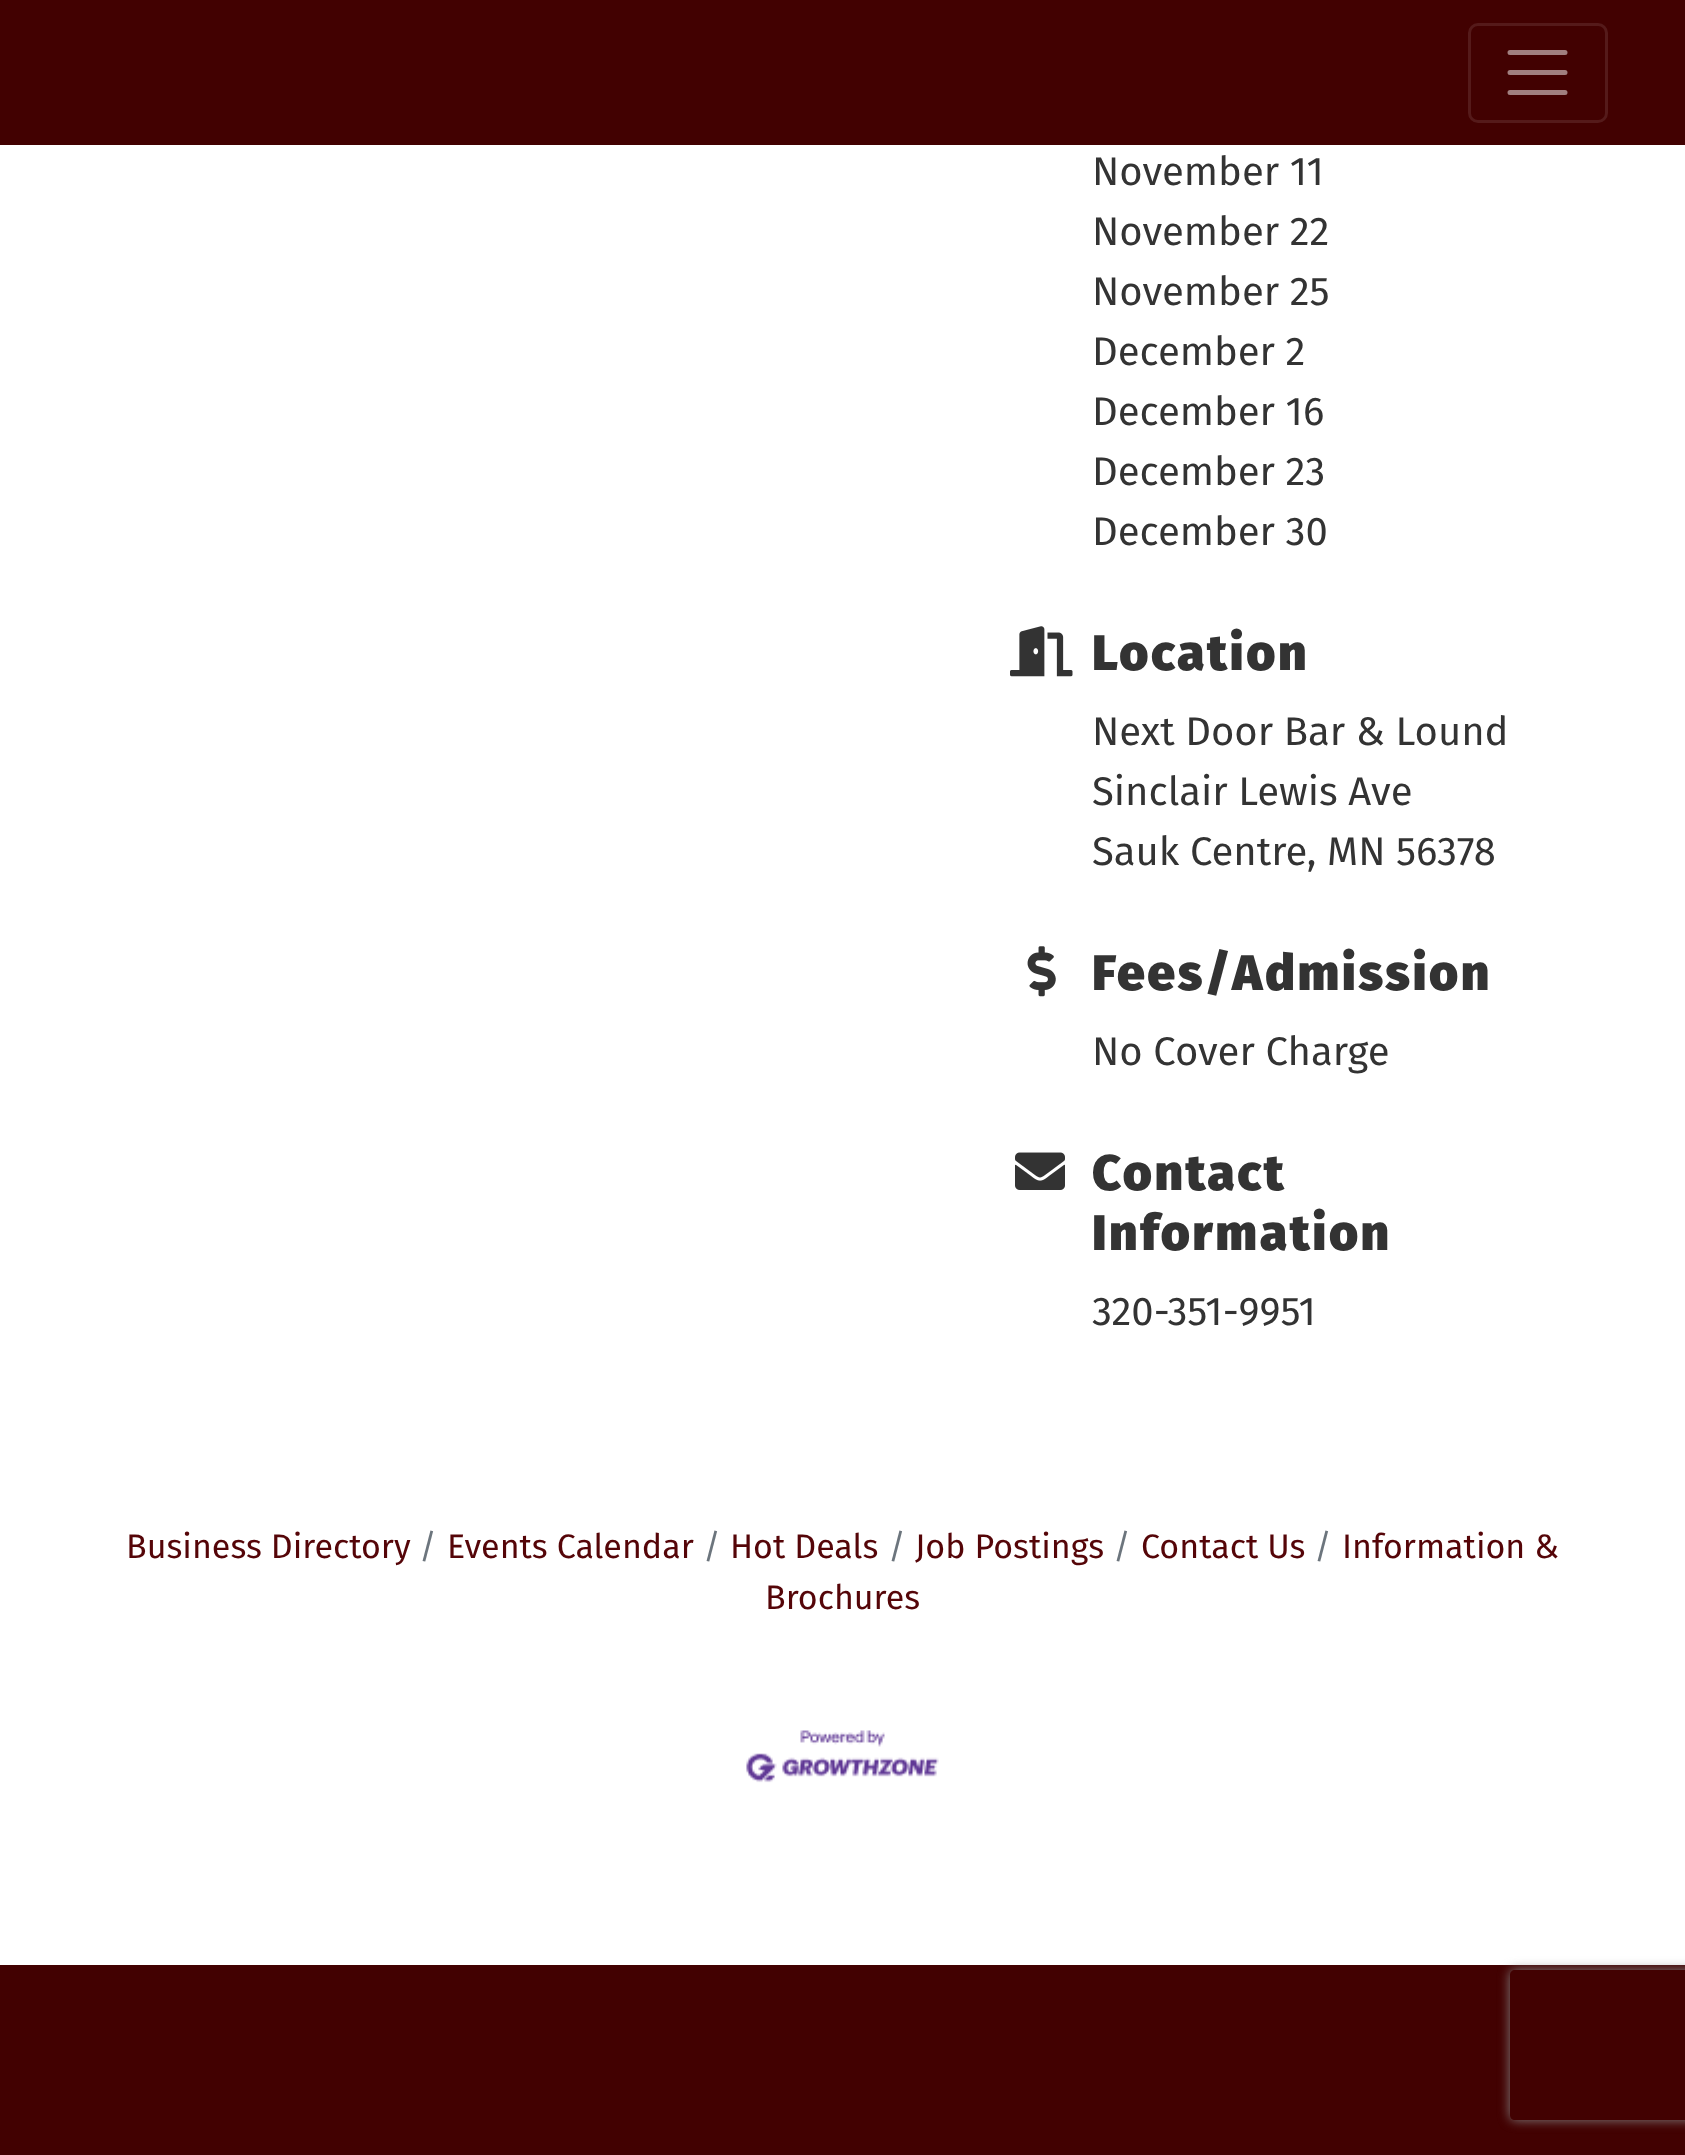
(async () => {
    const canvas = document.querySelector("canvas");
    canvas.width = 1685;
    canvas.height = 2155;
    const context = canvas.getContext("2d");
    context.miterLimit = 4;
    context.fontKerning = "normal";
    function write(s, x, y, font, color) {
        context.font = font;
        context.fillStyle = color;
        context.fillText(s, x, y);
    }
    function block(x, y, w, h, color) {
        context.fillStyle = color;
        context.fillRect(x, y, w, h);
    }
    async function photo(src, x, y, w, h) {
        const img = new Image();
        img.src = src;
        await img.decode();
        context.drawImage(img, x, y, w, h);
    }

    block(0, 0, 1685, 2155, "rgb(255, 255, 255)");
    block(0, 0, 1685, 145, "rgb(66, 1, 1)");
    context.beginPath();
    context.roundRect(1469.5, 24.5, 137, 97, 8.5);
    context.strokeStyle = "rgb(85, 26, 26)";
    context.lineWidth = 3;
    context.stroke();
    context.beginPath();
    context.moveTo(1510, 52.5);
    context.lineTo(1565, 52.5);
    context.moveTo(1510, 72.5);
    context.lineTo(1565, 72.5);
    context.moveTo(1510, 92.5);
    context.lineTo(1565, 92.5);
    context.strokeStyle = "rgb(161, 128, 128)";
    context.lineWidth = 5;
    context.lineCap = "round";
    context.stroke();
    write("November 11", 1092, 185, "40px Fira Sans", "rgb(51, 51, 51)");
    write("November 22", 1092, 245, "40px Fira Sans", "rgb(51, 51, 51)");
    write("November 25", 1092, 305, "40px Fira Sans", "rgb(51, 51, 51)");
    write("December 2", 1092, 365, "40px Fira Sans", "rgb(51, 51, 51)");
    write("December 16", 1092, 425, "40px Fira Sans", "rgb(51, 51, 51)");
    write("December 23", 1092, 485, "40px Fira Sans", "rgb(51, 51, 51)");
    write("December 30", 1092, 545, "40px Fira Sans", "rgb(51, 51, 51)");
    await photo("media/1.png", 1010, 626, 63, 51);
    context.letterSpacing = "2.5px";
    write("Location", 1092, 670, "900 50px Fira Sans", "rgb(51, 51, 51)");
    context.letterSpacing = "0px";
    write("Next Door Bar & Lound", 1092, 745, "40px Fira Sans", "rgb(51, 51, 51)");
    write("Sinclair Lewis Ave", 1092, 805, "40px Fira Sans", "rgb(51, 51, 51)");
    write("Sauk Centre, MN 56378", 1092, 865, "40px Fira Sans", "rgb(51, 51, 51)");
    await photo("media/2.png", 1027, 946, 29, 51);
    context.letterSpacing = "2.5px";
    write("Fees/Admission", 1092, 990, "900 50px Fira Sans", "rgb(51, 51, 51)");
    context.letterSpacing = "0px";
    write("No Cover Charge", 1092, 1065, "40px Fira Sans", "rgb(51, 51, 51)");
    await photo("media/3.png", 1015, 1152, 50, 38);
    context.letterSpacing = "2.5px";
    write("Contact", 1092, 1190, "900 50px Fira Sans", "rgb(51, 51, 51)");
    write("Information", 1092, 1250, "900 50px Fira Sans", "rgb(51, 51, 51)");
    context.letterSpacing = "0px";
    write("320-351-9951", 1092, 1325, "40px Fira Sans", "rgb(51, 51, 51)");
    write("/", 419, 1558, "34px Fira Sans", "rgb(108, 117, 125)");
    write("Events Calendar", 447, 1558, "34px Fira Sans", "rgb(85, 5, 8)");
    write("/", 703, 1558, "34px Fira Sans", "rgb(108, 117, 125)");
    write("Hot Deals", 730, 1558, "34px Fira Sans", "rgb(85, 5, 8)");
    write("/", 1314, 1558, "34px Fira Sans", "rgb(108, 117, 125)");
    write("Information &", 1342, 1558, "34px Fira Sans", "rgb(85, 5, 8)");
    write("Brochures", 765, 1609, "34px Fira Sans", "rgb(85, 5, 8)");
    write("Business Directory", 126, 1558, "34px Fira Sans", "rgb(85, 5, 8)");
    write("/", 888, 1558, "34px Fira Sans", "rgb(108, 117, 125)");
    write("Job Postings", 915, 1558, "34px Fira Sans", "rgb(85, 5, 8)");
    write("/", 1113, 1558, "34px Fira Sans", "rgb(108, 117, 125)");
    write("Contact Us", 1141, 1558, "34px Fira Sans", "rgb(85, 5, 8)");
    await photo("media/4.png", 746, 1730, 193, 53);
    block(0, 1965, 1685, 190, "rgb(66, 1, 1)");
    context.save();
    context.beginPath();
    context.moveTo(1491, 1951);
    context.lineTo(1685, 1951);
    context.lineTo(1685, 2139);
    context.lineTo(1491, 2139);
    context.closePath();
    context.moveTo(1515, 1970);
    context.lineTo(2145, 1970);
    context.bezierCurveTo(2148, 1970, 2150, 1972, 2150, 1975);
    context.lineTo(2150, 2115);
    context.bezierCurveTo(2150, 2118, 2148, 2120, 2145, 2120);
    context.lineTo(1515, 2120);
    context.bezierCurveTo(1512, 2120, 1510, 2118, 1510, 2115);
    context.lineTo(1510, 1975);
    context.bezierCurveTo(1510, 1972, 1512, 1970, 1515, 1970);
    context.closePath();
    context.clip("evenodd");
    context.fillStyle = "rgb(128, 128, 128)";
    context.filter = "blur(6px)";
    context.beginPath();
    context.roundRect(1510, 1970, 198, 150, 5);
    context.fill();
    context.filter = "none";
    context.restore();
})();
